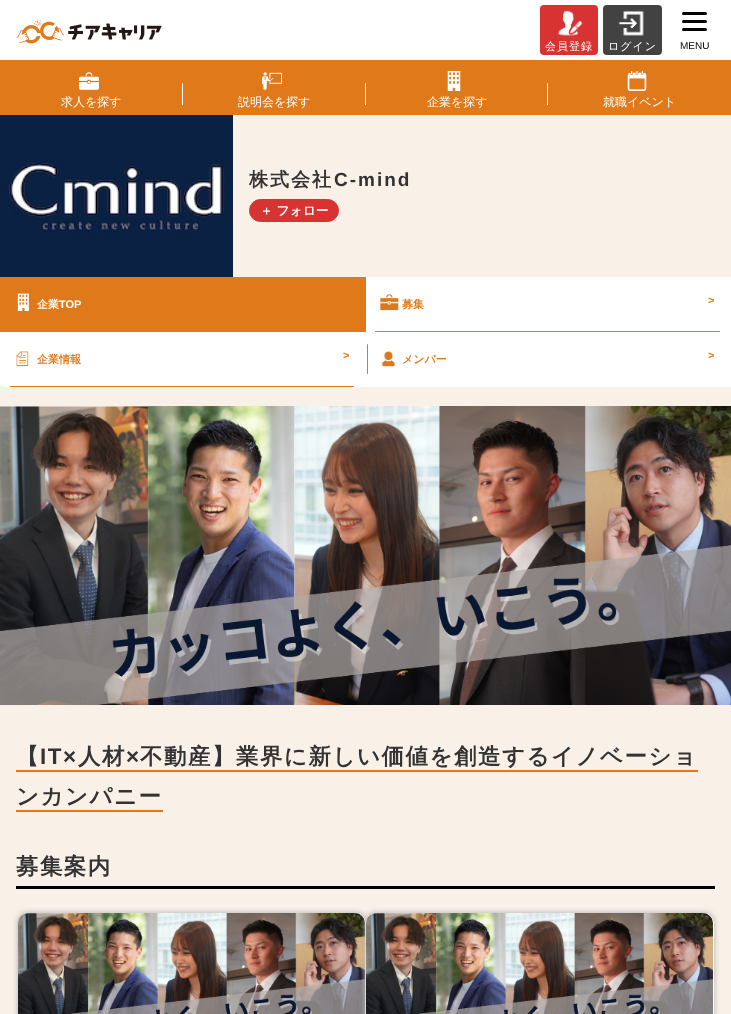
(async () => {
    const canvas = document.querySelector("canvas");
    canvas.width = 731;
    canvas.height = 1014;
    const context = canvas.getContext("2d");
    context.miterLimit = 4;
    context.fontKerning = "normal";
    function write(s, x, y, font, color) {
        context.font = font;
        context.fillStyle = color;
        context.fillText(s, x, y);
    }
    function block(x, y, w, h, color) {
        context.fillStyle = color;
        context.fillRect(x, y, w, h);
    }
    function card(x, y, w, h, r, color) {
        context.fillStyle = color;
        context.beginPath();
        context.roundRect(x, y, w, h, r);
        context.fill();
    }
    async function photo(src, x, y, w, h) {
        const img = new Image();
        img.src = src;
        await img.decode();
        context.drawImage(img, x, y, w, h);
    }

    block(0, 0, 731, 1014, "rgb(255, 255, 255)");
    await photo("media/1.png", 16, 19, 146, 25);
    card(540, 5, 58, 50, 4, "rgb(216, 50, 50)");
    await photo("media/2.png", 558, 10, 25, 26);
    context.letterSpacing = "1px";
    write("会員登録", 545, 50, "500 11px WenQuanYi Zen Hei", "rgb(255, 255, 255)");
    card(603, 5, 59, 50, 4, "rgb(66, 66, 66)");
    await photo("media/3.png", 618, 10, 26, 26);
    write("ログイン", 608, 50, "500 11px WenQuanYi Zen Hei", "rgb(255, 255, 255)");
    card(682, 20, 25, 3, 1.5, "rgb(0, 0, 0)");
    card(682, 12, 25, 3, 1.5, "rgb(0, 0, 0)");
    card(682, 28, 25, 3, 1.5, "rgb(0, 0, 0)");
    context.letterSpacing = "0px";
    write("MENU", 680, 49, "10px Liberation Sans", "rgb(0, 0, 0)");
    block(0, 60, 731, 55, "rgb(223, 121, 25)");
    await photo("media/4.png", 79, 72, 20, 18);
    write("求人を探す", 61, 106, "500 12px WenQuanYi Zen Hei", "rgb(255, 255, 255)");
    card(182, 83, 1, 22, 0.5, "rgb(255, 255, 255)");
    await photo("media/5.png", 262, 72, 20, 18);
    write("説明会を探す", 238, 106, "500 12px WenQuanYi Zen Hei", "rgb(255, 255, 255)");
    card(365, 83, 1, 22, 0.5, "rgb(255, 255, 255)");
    await photo("media/6.png", 447, 71, 14, 20);
    write("企業を探す", 427, 106, "500 12px WenQuanYi Zen Hei", "rgb(255, 255, 255)");
    card(547, 83, 1, 22, 0.5, "rgb(255, 255, 255)");
    await photo("media/7.png", 627, 71, 20, 20);
    write("就職イベント", 603, 106, "500 12px WenQuanYi Zen Hei", "rgb(255, 255, 255)");
    block(0, 115, 731, 899, "rgb(249, 240, 232)");
    await photo("media/8.png", 0, 115, 233, 162);
    context.letterSpacing = "2px";
    write("株式会社", 249, 186, "bold 19px WenQuanYi Zen Hei", "rgb(51, 51, 51)");
    write("C-mind", 334, 186, "bold 19px Liberation Sans", "rgb(51, 51, 51)");
    context.fillStyle = "rgb(216, 50, 50)";
    context.beginPath();
    context.roundRect(249.5, 199.5, 89, 22, 11);
    context.fill();
    context.strokeStyle = "rgb(216, 50, 50)";
    context.stroke();
    context.letterSpacing = "0px";
    write("＋ フォロー", 260, 215, "bold 12.75px WenQuanYi Zen Hei", "rgb(255, 255, 255)");
    block(0, 277, 731, 110, "rgb(255, 255, 255)");
    block(0, 277, 366, 55, "rgb(223, 121, 25)");
    await photo("media/9.png", 17, 293, 12, 18);
    write("企業", 37, 308, "bold 11px WenQuanYi Zen Hei", "rgb(255, 255, 255)");
    write("TOP", 59, 308, "bold 11px Liberation Sans", "rgb(255, 255, 255)");
    await photo("media/10.png", 380, 294, 19, 17);
    write("募集", 402, 308, "bold 11px WenQuanYi Zen Hei", "rgb(223, 121, 25)");
    write(">", 708, 304, "bold 11px Liberation Sans", "rgb(223, 121, 25)");
    card(375, 331, 345, 1, 0.5, "rgb(223, 121, 25)");
    await photo("media/11.png", 16, 351, 13, 16);
    write("企業情報", 37, 363, "bold 11px WenQuanYi Zen Hei", "rgb(223, 121, 25)");
    write(">", 343, 359, "bold 11px Liberation Sans", "rgb(223, 121, 25)");
    card(10, 386, 344, 1, 0.5, "rgb(223, 121, 25)");
    card(367, 344, 1, 30, 0.5, "rgb(223, 121, 25)");
    await photo("media/12.png", 381, 351, 14, 16);
    write("メンバー", 402, 363, "bold 11px WenQuanYi Zen Hei", "rgb(223, 121, 25)");
    write(">", 708, 359, "bold 11px Liberation Sans", "rgb(223, 121, 25)");
    await photo("media/13.png", 0, 406, 731, 299);
    context.letterSpacing = "1.6px";
    write("【", 16, 764, "bold 22.4px WenQuanYi Zen Hei", "rgb(51, 51, 51)");
    write("IT×", 40, 764, "bold 22.4px Liberation Sans", "rgb(51, 51, 51)");
    write("人材", 78, 764, "bold 22.4px WenQuanYi Zen Hei", "rgb(51, 51, 51)");
    write("×", 126, 764, "bold 22.4px Liberation Sans", "rgb(51, 51, 51)");
    write("不動産】業界に新しい価値を創造するイノベーショ", 140, 764, "bold 22.4px WenQuanYi Zen Hei", "rgb(51, 51, 51)");
    block(16, 770, 682, 2, "rgb(223, 121, 25)");
    write("ンカンパニー", 16, 804, "bold 22.4px WenQuanYi Zen Hei", "rgb(51, 51, 51)");
    block(16, 810, 147, 2, "rgb(223, 121, 25)");
    block(16, 886, 699, 3, "rgb(0, 0, 0)");
    context.letterSpacing = "1.5px";
    write("募集案内", 16, 874, "bold 22.4px WenQuanYi Zen Hei", "rgb(51, 51, 51)");
    context.fillStyle = "rgb(189, 189, 189)";
    context.filter = "blur(2.5px)";
    context.beginPath();
    context.roundRect(17, 912, 350, 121, 11);
    context.fill();
    context.filter = "none";
    card(18, 913, 348, 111, 10, "rgb(255, 255, 255)");
    await photo("media/14.png", 18, 913, 347, 101);
    context.fillStyle = "rgb(189, 189, 189)";
    context.filter = "blur(2.5px)";
    context.beginPath();
    context.roundRect(365, 912, 350, 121, 11);
    context.fill();
    context.filter = "none";
    card(366, 913, 348, 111, 10, "rgb(255, 255, 255)");
    await photo("media/15.png", 366, 913, 347, 101);
})();
